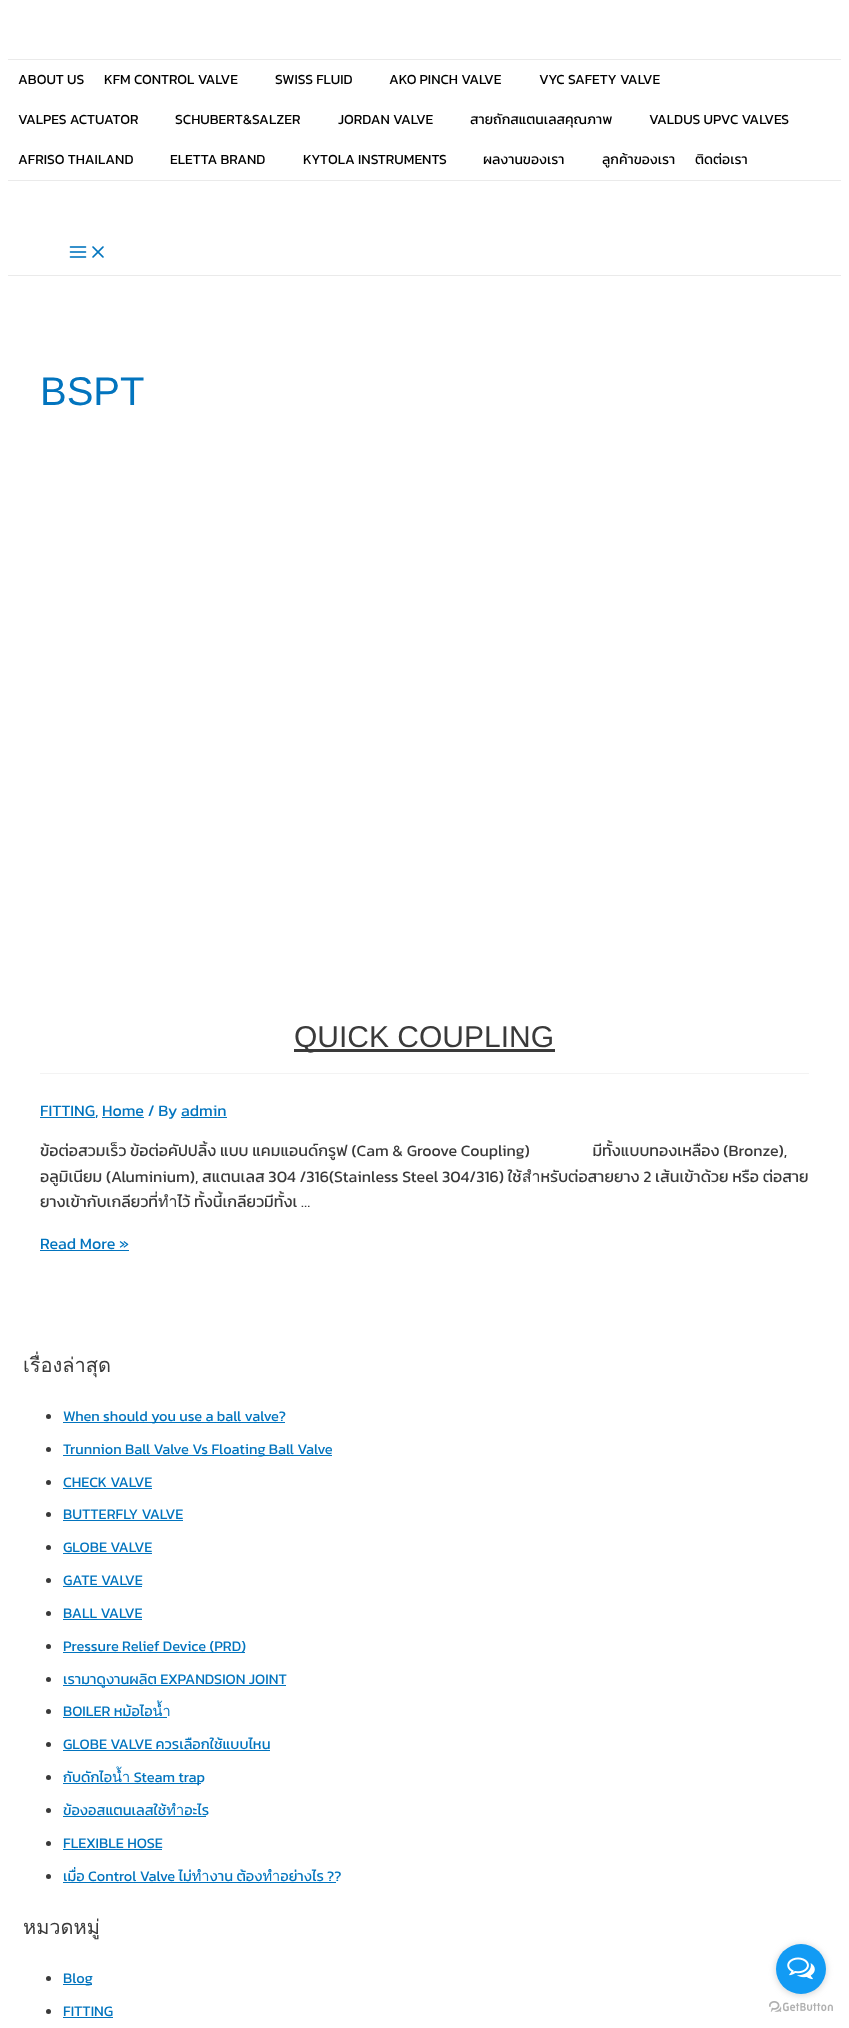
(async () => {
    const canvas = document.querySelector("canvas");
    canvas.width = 849;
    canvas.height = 2028;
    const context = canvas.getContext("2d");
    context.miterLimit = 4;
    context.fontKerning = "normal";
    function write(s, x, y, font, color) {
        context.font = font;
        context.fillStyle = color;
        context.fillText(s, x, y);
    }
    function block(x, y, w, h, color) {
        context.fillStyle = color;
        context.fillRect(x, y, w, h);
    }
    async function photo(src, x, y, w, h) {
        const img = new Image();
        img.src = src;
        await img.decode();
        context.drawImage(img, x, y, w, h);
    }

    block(0, 0, 849, 2028, "rgb(255, 255, 255)");
    block(8, 59, 833, 1, "rgb(234, 234, 234)");
    block(8, 180, 833, 1, "rgb(234, 234, 234)");
    write("ABOUT US", 18, 84, "14px Kanit", "rgb(0, 0, 0)");
    write("KFM CONTROL VALVE", 104, 84, "14px Kanit", "rgb(0, 0, 0)");
    write("SWISS FLUID", 275, 84, "14px Kanit", "rgb(0, 0, 0)");
    write("AKO PINCH VALVE", 389, 84, "14px Kanit", "rgb(0, 0, 0)");
    write("VYC SAFETY VALVE", 539, 84, "14px Kanit", "rgb(0, 0, 0)");
    write("VALPES ACTUATOR", 18, 124, "14px Kanit", "rgb(0, 0, 0)");
    write("SCHUBERT&SALZER", 175, 124, "14px Kanit", "rgb(0, 0, 0)");
    write("JORDAN VALVE", 338, 124, "14px Kanit", "rgb(0, 0, 0)");
    write("สายถักสแตนเลสคุณภาพ", 470, 124, "14px Kanit", "rgb(0, 0, 0)");
    write("VALDUS UPVC VALVES", 649, 124, "14px Kanit", "rgb(0, 0, 0)");
    write("AFRISO THAILAND", 18, 164, "14px Kanit", "rgb(0, 0, 0)");
    write("ELETTA BRAND", 170, 164, "14px Kanit", "rgb(0, 0, 0)");
    write("KYTOLA INSTRUMENTS", 303, 164, "14px Kanit", "rgb(0, 0, 0)");
    write("ผลงานของเรา", 483, 164, "14px Kanit", "rgb(0, 0, 0)");
    write("ลูกค้าของเรา", 602, 164, "14px Kanit", "rgb(0, 0, 0)");
    write("ติดต่อเรา", 695, 164, "14px Kanit", "rgb(0, 0, 0)");
    block(8, 275, 833, 1, "rgb(234, 234, 234)");
    await photo("media/1.png", 69, 246, 18, 12);
    await photo("media/2.png", 92, 246, 12, 12);
    write("BSPT", 40, 405, "40px Liberation Sans", "rgb(2, 116, 190)");
    block(40, 1073, 769, 1, "rgb(243, 243, 243)");
    block(294, 1049, 261, 3, "rgb(58, 58, 58)");
    write("QUICK COUPLING", 294, 1047, "30px Liberation Sans", "rgb(58, 58, 58)");
    block(40, 1117, 55, 1, "rgb(2, 116, 190)");
    write("FITTING, Home / By admin", 40, 1116, "16px Kanit", "rgb(2, 116, 190)");
    block(102, 1117, 42, 1, "rgb(2, 116, 190)");
    block(181, 1117, 46, 1, "rgb(2, 116, 190)");
    write("ข้อต่อสวมเร็ว ข้อต่อคัปปลิ้ง แบบ แคมแอนด์กรูฟ (Cam & Groove Coupling)                 มีทั้งแบบทองเหลือง (Bronze),", 40, 1156, "16px Kanit", "rgb(58, 58, 58)");
    write("อลูมิเนียม (Aluminium), สแตนเลส 304 /316(Stainless Steel 304/316) ใช้สำหรับต่อสายยาง 2 เส้นเข้าด้วย หรือ ต่อสาย", 40, 1182, "16px Kanit", "rgb(58, 58, 58)");
    write("ยางเข้ากับเกลียวที่ทำไว้ ทั้งนี้เกลียวมีทั้งเ …", 40, 1207, "16px Kanit", "rgb(58, 58, 58)");
    write("Read More »", 40, 1249, "16px Kanit", "rgb(2, 116, 190)");
    block(40, 1250, 89, 1, "rgb(2, 116, 190)");
    write("เรื่องล่าสุด", 23, 1372, "20px Loma", "rgb(58, 58, 58)");
    context.beginPath();
    context.arc(48.5, 1416.5, 2.5, 0, Math.PI * 2);
    context.fill();
    block(63, 1422, 222, 1, "rgb(2, 116, 190)");
    write("When should you use a ball valve?", 63, 1421, "14.6px Kanit", "rgb(2, 116, 190)");
    context.fillStyle = "rgb(58, 58, 58)";
    context.beginPath();
    context.arc(48.5, 1449.5, 2.5, 0, Math.PI * 2);
    context.fill();
    block(63, 1455, 269, 1, "rgb(2, 116, 190)");
    write("Trunnion Ball Valve Vs Floating Ball Valve", 63, 1454, "14.6px Kanit", "rgb(2, 116, 190)");
    context.fillStyle = "rgb(58, 58, 58)";
    context.beginPath();
    context.arc(48.5, 1482.5, 2.5, 0, Math.PI * 2);
    context.fill();
    write("CHECK VALVE", 63, 1487, "14.6px Kanit", "rgb(2, 116, 190)");
    block(63, 1488, 89, 1, "rgb(2, 116, 190)");
    context.fillStyle = "rgb(58, 58, 58)";
    context.beginPath();
    context.arc(48.5, 1514.5, 2.5, 0, Math.PI * 2);
    context.fill();
    write("BUTTERFLY VALVE", 63, 1519, "14.6px Kanit", "rgb(2, 116, 190)");
    block(63, 1520, 120, 1, "rgb(2, 116, 190)");
    context.fillStyle = "rgb(58, 58, 58)";
    context.beginPath();
    context.arc(48.5, 1547.5, 2.5, 0, Math.PI * 2);
    context.fill();
    write("GLOBE VALVE", 63, 1552, "14.6px Kanit", "rgb(2, 116, 190)");
    block(63, 1553, 89, 1, "rgb(2, 116, 190)");
    context.fillStyle = "rgb(58, 58, 58)";
    context.beginPath();
    context.arc(48.5, 1580.5, 2.5, 0, Math.PI * 2);
    context.fill();
    write("GATE VALVE", 63, 1585, "14.6px Kanit", "rgb(2, 116, 190)");
    block(63, 1586, 79, 1, "rgb(2, 116, 190)");
    context.fillStyle = "rgb(58, 58, 58)";
    context.beginPath();
    context.arc(48.5, 1613.5, 2.5, 0, Math.PI * 2);
    context.fill();
    write("BALL VALVE", 63, 1618, "14.6px Kanit", "rgb(2, 116, 190)");
    block(63, 1619, 79, 1, "rgb(2, 116, 190)");
    context.fillStyle = "rgb(58, 58, 58)";
    context.beginPath();
    context.arc(48.5, 1646.5, 2.5, 0, Math.PI * 2);
    context.fill();
    block(63, 1652, 182, 1, "rgb(2, 116, 190)");
    write("Pressure Relief Device (PRD)", 63, 1651, "14.6px Kanit", "rgb(2, 116, 190)");
    context.fillStyle = "rgb(58, 58, 58)";
    context.beginPath();
    context.arc(48.5, 1679.5, 2.5, 0, Math.PI * 2);
    context.fill();
    block(63, 1685, 223, 1, "rgb(2, 116, 190)");
    write("เรามาดูงานผลิต EXPANDSION JOINT", 63, 1684, "14.6px Kanit", "rgb(2, 116, 190)");
    context.fillStyle = "rgb(58, 58, 58)";
    context.beginPath();
    context.arc(48.5, 1711.5, 2.5, 0, Math.PI * 2);
    context.fill();
    write("BOILER หม้อไอน้ำ", 63, 1716, "14.6px Kanit", "rgb(2, 116, 190)");
    block(63, 1717, 104, 1, "rgb(2, 116, 190)");
    context.fillStyle = "rgb(58, 58, 58)";
    context.beginPath();
    context.arc(48.5, 1744.5, 2.5, 0, Math.PI * 2);
    context.fill();
    write("GLOBE VALVE ควรเลือกใช้แบบไหน", 63, 1749, "14.6px Kanit", "rgb(2, 116, 190)");
    block(63, 1750, 207, 1, "rgb(2, 116, 190)");
    context.fillStyle = "rgb(58, 58, 58)";
    context.beginPath();
    context.arc(48.5, 1777.5, 2.5, 0, Math.PI * 2);
    context.fill();
    block(63, 1783, 138, 1, "rgb(2, 116, 190)");
    write("กับดักไอน้ำ Steam trap", 63, 1782, "14.6px Kanit", "rgb(2, 116, 190)");
    context.fillStyle = "rgb(58, 58, 58)";
    context.beginPath();
    context.arc(48.5, 1810.5, 2.5, 0, Math.PI * 2);
    context.fill();
    write("ข้องอสแตนเลสใช้ทำอะไร", 63, 1815, "14.6px Kanit", "rgb(2, 116, 190)");
    block(63, 1816, 143, 1, "rgb(2, 116, 190)");
    context.fillStyle = "rgb(58, 58, 58)";
    context.beginPath();
    context.arc(48.5, 1843.5, 2.5, 0, Math.PI * 2);
    context.fill();
    write("FLEXIBLE HOSE", 63, 1848, "14.6px Kanit", "rgb(2, 116, 190)");
    block(63, 1849, 99, 1, "rgb(2, 116, 190)");
    context.fillStyle = "rgb(58, 58, 58)";
    context.beginPath();
    context.arc(48.5, 1876.5, 2.5, 0, Math.PI * 2);
    context.fill();
    write("เมื่อ Control Valve ไม่ทำงาน ต้องทำอย่างไร ??", 63, 1881, "14.6px Kanit", "rgb(2, 116, 190)");
    block(63, 1882, 273, 1, "rgb(2, 116, 190)");
    write("หมวดหมู่", 23, 1934, "20px Loma", "rgb(58, 58, 58)");
    context.beginPath();
    context.arc(48.5, 1978.5, 2.5, 0, Math.PI * 2);
    context.fill();
    block(63, 1984, 29, 1, "rgb(2, 116, 190)");
    write("Blog", 63, 1983, "14.6px Kanit", "rgb(2, 116, 190)");
    context.fillStyle = "rgb(58, 58, 58)";
    context.beginPath();
    context.arc(48.5, 2011.5, 2.5, 0, Math.PI * 2);
    context.fill();
    write("FITTING", 63, 2016, "14.6px Kanit", "rgb(2, 116, 190)");
    block(63, 2017, 50, 1, "rgb(2, 116, 190)");
    await photo("media/4.png", 769, 2001, 64, 11);
    context.fillStyle = "rgba(136, 136, 136, 0.4)";
    context.filter = "blur(3.5px)";
    context.beginPath();
    context.roundRect(776, 1945, 50, 50, 25);
    context.fill();
    context.filter = "none";
    context.fillStyle = "rgb(18, 155, 244)";
    context.beginPath();
    context.arc(801, 1969, 25, 0, Math.PI * 2);
    context.fill();
    await photo("media/3.png", 787, 1957, 28, 23);
})();
